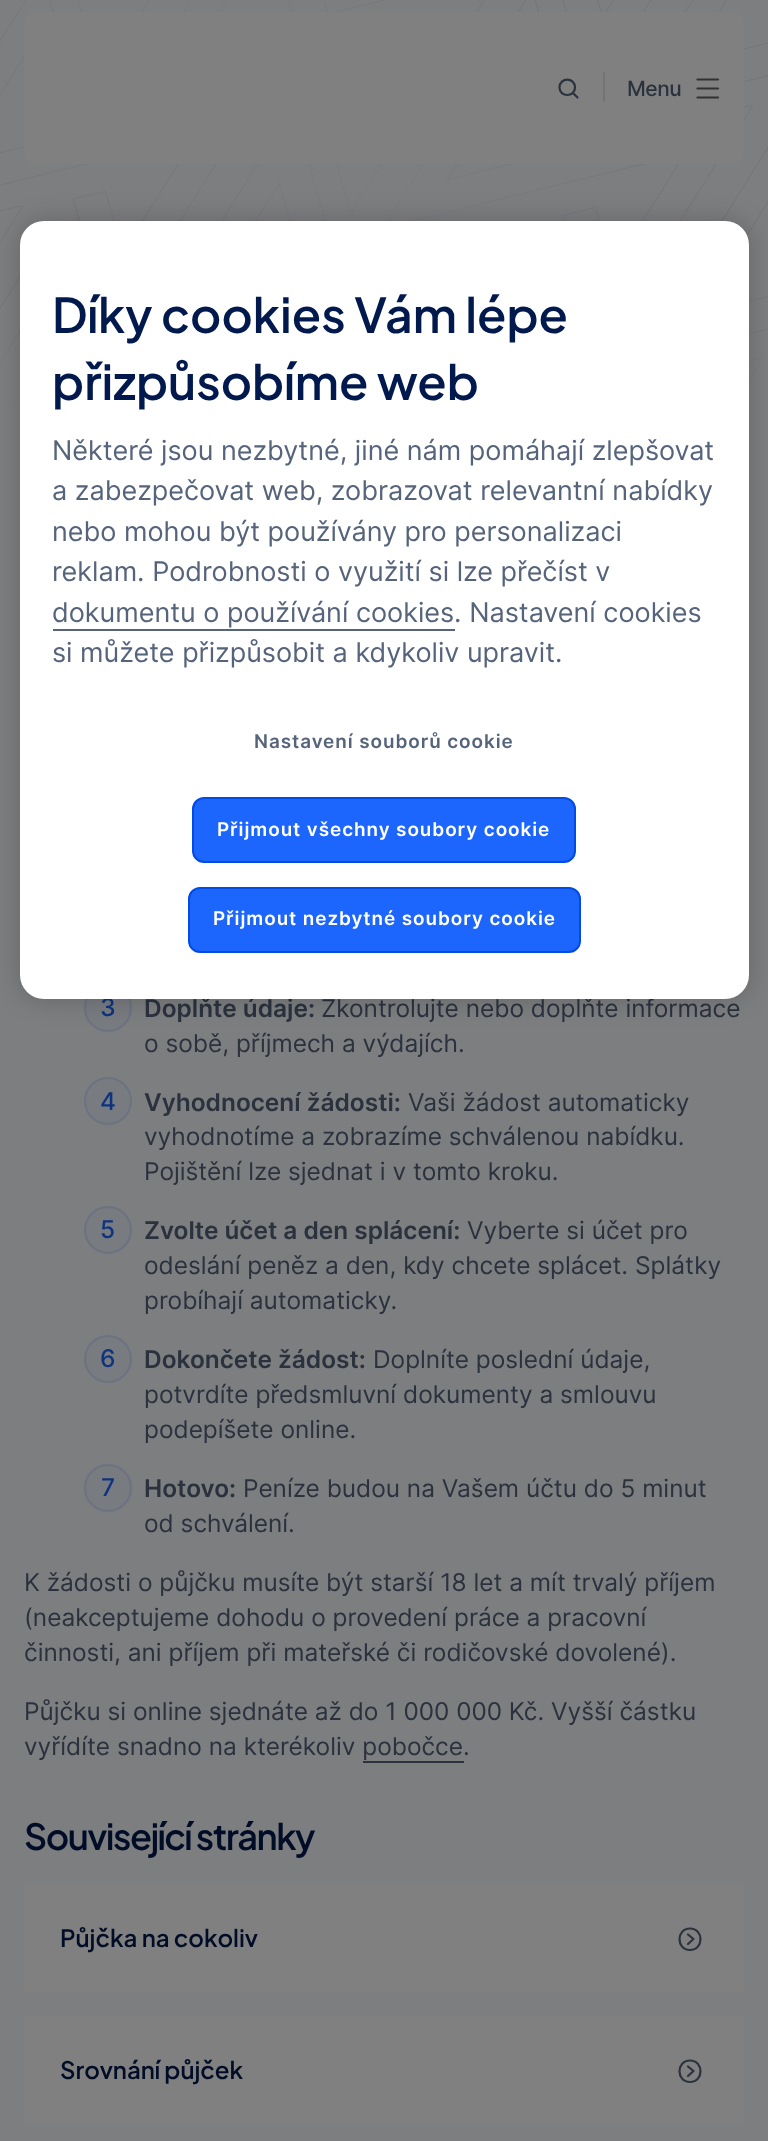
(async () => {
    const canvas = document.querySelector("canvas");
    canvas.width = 768;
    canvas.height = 2141;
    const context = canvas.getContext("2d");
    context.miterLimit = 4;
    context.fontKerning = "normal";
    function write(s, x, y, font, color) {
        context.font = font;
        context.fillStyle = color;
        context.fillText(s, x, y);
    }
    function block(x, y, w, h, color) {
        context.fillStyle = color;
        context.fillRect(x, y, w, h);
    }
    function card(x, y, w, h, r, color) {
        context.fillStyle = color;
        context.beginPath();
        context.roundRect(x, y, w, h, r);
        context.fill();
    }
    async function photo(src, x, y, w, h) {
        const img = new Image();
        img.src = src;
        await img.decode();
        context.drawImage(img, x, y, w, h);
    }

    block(0, 0, 768, 2141, "rgb(125, 126, 128)");
    await photo("media/2.png", 0, 0, 768, 407);
    await photo("media/1.png", 0, 0, 768, 414);
    card(24, 12, 720, 152, 12, "rgb(128, 128, 128)");
    context.beginPath();
    context.moveTo(577.5, 97.5);
    context.lineTo(573, 93);
    context.moveTo(559.5, 87.5);
    context.bezierCurveTo(559.5, 77, 575, 77, 575, 87.5);
    context.bezierCurveTo(575, 97.5, 559.5, 97.5, 559.5, 87.5);
    context.closePath();
    context.strokeStyle = "rgb(43, 50, 62)";
    context.lineWidth = 2.2;
    context.lineCap = "round";
    context.lineJoin = "round";
    context.stroke();
    block(603, 72, 2, 30, "rgb(114, 116, 118)");
    context.letterSpacing = "-0.5px";
    write("Menu", 627, 96, "500 21px Inter", "rgb(43, 50, 62)");
    context.beginPath();
    context.moveTo(697.5, 79.5);
    context.lineTo(718, 79.5);
    context.moveTo(697.5, 97.5);
    context.lineTo(718, 97.5);
    context.moveTo(697.5, 88.5);
    context.lineTo(718, 88.5);
    context.strokeStyle = "rgb(49, 49, 49)";
    context.stroke();
    context.fillStyle = "rgb(120, 123, 128)";
    context.beginPath();
    context.arc(108, 1008, 23, 0, Math.PI * 2);
    context.fill();
    context.strokeStyle = "rgb(108, 114, 128)";
    context.lineWidth = 2;
    context.stroke();
    context.letterSpacing = "0px";
    write("3", 100, 1016, "500 24.45px Inter", "rgb(14, 51, 127)");
    write("Doplňte údaje:", 144, 1017, "600 24.45px Inter", "rgb(43, 50, 62)");
    write("Zkontrolujte nebo doplňte informace", 321, 1017, "24.45px Inter", "rgb(43, 50, 62)");
    write("o sobě, příjmech a výdajích.", 144, 1052, "24.45px Inter", "rgb(43, 50, 62)");
    context.fillStyle = "rgb(120, 123, 128)";
    context.beginPath();
    context.arc(108, 1101, 23, 0, Math.PI * 2);
    context.fill();
    context.stroke();
    write("4", 100, 1110, "500 24.45px Inter", "rgb(14, 51, 127)");
    write("Vyhodnocení žádosti:", 144, 1111, "600 24.45px Inter", "rgb(43, 50, 62)");
    write("Vaši žádost automaticky", 408, 1111, "24.45px Inter", "rgb(43, 50, 62)");
    write("vyhodnotíme a zobrazíme schválenou nabídku.", 144, 1145, "24.45px Inter", "rgb(43, 50, 62)");
    write("Pojištění lze sjednat i v tomto kroku.", 144, 1180, "24.45px Inter", "rgb(43, 50, 62)");
    context.fillStyle = "rgb(120, 123, 128)";
    context.beginPath();
    context.arc(108, 1230, 23, 0, Math.PI * 2);
    context.fill();
    context.stroke();
    write("5", 100, 1238, "500 24.45px Inter", "rgb(14, 51, 127)");
    write("Zvolte účet a den splácení:", 144, 1239, "600 24.45px Inter", "rgb(43, 50, 62)");
    write("Vyberte si účet pro", 467, 1239, "24.45px Inter", "rgb(43, 50, 62)");
    write("odeslání peněz a den, kdy chcete splácet. Splátky", 144, 1274, "24.45px Inter", "rgb(43, 50, 62)");
    write("probíhají automaticky.", 144, 1309, "24.45px Inter", "rgb(43, 50, 62)");
    context.fillStyle = "rgb(120, 123, 128)";
    context.beginPath();
    context.arc(108, 1359, 23, 0, Math.PI * 2);
    context.fill();
    context.stroke();
    write("6", 100, 1367, "500 24.45px Inter", "rgb(14, 51, 127)");
    write("Dokončete žádost:", 144, 1368, "600 24.45px Inter", "rgb(43, 50, 62)");
    write("Doplníte poslední údaje,", 373, 1368, "24.45px Inter", "rgb(43, 50, 62)");
    write("potvrdíte předsmluvní dokumenty a smlouvu", 144, 1403, "24.45px Inter", "rgb(43, 50, 62)");
    write("podepíšete online.", 144, 1438, "24.45px Inter", "rgb(43, 50, 62)");
    context.fillStyle = "rgb(120, 123, 128)";
    context.beginPath();
    context.arc(108, 1488, 23, 0, Math.PI * 2);
    context.fill();
    context.stroke();
    write("7", 101, 1496, "500 24.45px Inter", "rgb(14, 51, 127)");
    write("Hotovo:", 144, 1497, "600 24.45px Inter", "rgb(43, 50, 62)");
    write("Peníze budou na Vašem účtu do 5 minut", 243, 1497, "24.45px Inter", "rgb(43, 50, 62)");
    write("od schválení.", 144, 1532, "24.45px Inter", "rgb(43, 50, 62)");
    write("K žádosti o půjčku musíte být starší 18 let a mít trvalý příjem", 24, 1591, "24.45px Inter", "rgb(43, 50, 62)");
    write("(neakceptujeme dohodu o provedení práce a pracovní", 24, 1626, "24.45px Inter", "rgb(43, 50, 62)");
    write("činnosti, ani příjem při mateřské či rodičovské dovolené).", 24, 1661, "24.45px Inter", "rgb(43, 50, 62)");
    write("Půjčku si online sjednáte až do 1 000 000 Kč. Vyšší částku", 24, 1720, "24.45px Inter", "rgb(43, 50, 62)");
    write("vyřídíte snadno na kterékoliv pobočce.", 24, 1755, "24.45px Inter", "rgb(43, 50, 62)");
    block(363, 1761, 101, 2, "rgb(43, 50, 62)");
    context.letterSpacing = "-1.5px";
    write("Související stránky", 24, 1850, "600 36px Plus Jakarta Sans", "rgb(1, 13, 38)");
    block(24, 1884, 720, 108, "rgb(128, 128, 128)");
    context.letterSpacing = "0px";
    write("Půjčka na cokoliv", 60, 1947, "600 24px Plus Jakarta Sans", "rgb(1, 13, 38)");
    context.beginPath();
    context.moveTo(688, 1944);
    context.lineTo(693.5, 1939);
    context.lineTo(688, 1934.5);
    context.moveTo(690, 1950);
    context.bezierCurveTo(704, 1950, 704, 1928.5, 690, 1928.5);
    context.bezierCurveTo(676, 1928.5, 676, 1950, 690, 1950);
    context.closePath();
    context.strokeStyle = "rgb(43, 50, 62)";
    context.lineWidth = 2.2;
    context.stroke();
    block(24, 2016, 720, 108, "rgb(128, 128, 128)");
    write("Srovnání půjček", 60, 2079, "600 24px Plus Jakarta Sans", "rgb(1, 13, 38)");
    context.beginPath();
    context.moveTo(688, 2076);
    context.lineTo(693.5, 2071);
    context.lineTo(688, 2066.5);
    context.moveTo(690, 2082);
    context.bezierCurveTo(704, 2082, 704, 2060.5, 690, 2060.5);
    context.bezierCurveTo(676, 2060.5, 676, 2082, 690, 2082);
    context.closePath();
    context.stroke();
    context.fillStyle = "rgba(0, 0, 0, 0.2)";
    context.filter = "blur(13.5px)";
    context.beginPath();
    context.roundRect(20, 221, 729, 778, 24);
    context.fill();
    context.filter = "none";
    card(20, 221, 729, 778, 24, "rgb(255, 255, 255)");
    write("Díky cookies Vám lépe", 52, 333, "600 48px Plus Jakarta Sans", "rgb(1, 25, 76)");
    write("přizpůsobíme web", 52, 400, "600 48px Plus Jakarta Sans", "rgb(1, 25, 76)");
    write("Některé jsou nezbytné, jiné nám pomáhají zlepšovat", 52, 460, "27px Inter", "rgb(86, 100, 123)");
    write("a zabezpečovat web, zobrazovat relevantní nabídky", 52, 500, "27px Inter", "rgb(86, 100, 123)");
    write("nebo mohou být používány pro personalizaci", 52, 541, "27px Inter", "rgb(86, 100, 123)");
    write("reklam. Podrobnosti o využití si lze přečíst v", 52, 581, "27px Inter", "rgb(86, 100, 123)");
    write("dokumentu o používání cookies. Nastavení cookies", 52, 622, "27px Inter", "rgb(86, 100, 123)");
    block(53, 629, 402, 2, "rgb(86, 100, 123)");
    write("si můžete přizpůsobit a kdykoliv upravit.", 52, 662, "27px Inter", "rgb(86, 100, 123)");
    context.letterSpacing = "0.95px";
    write("Nastavení souborů cookie", 254, 748, "600 18.9px Inter", "rgb(86, 100, 123)");
    context.fillStyle = "rgb(28, 101, 253)";
    context.beginPath();
    context.roundRect(193, 798, 382, 64, 11);
    context.fill();
    context.strokeStyle = "rgb(2, 75, 227)";
    context.lineWidth = 2;
    context.lineJoin = "miter";
    context.stroke();
    write("Přijmout všechny soubory cookie", 217, 836, "600 18.9px Inter", "rgb(255, 255, 255)");
    context.fillStyle = "rgb(28, 101, 253)";
    context.beginPath();
    context.roundRect(189, 888, 391, 64, 11);
    context.fill();
    context.stroke();
    write("Přijmout nezbytné soubory cookie", 213, 925, "600 18.9px Inter", "rgb(255, 255, 255)");
})();
